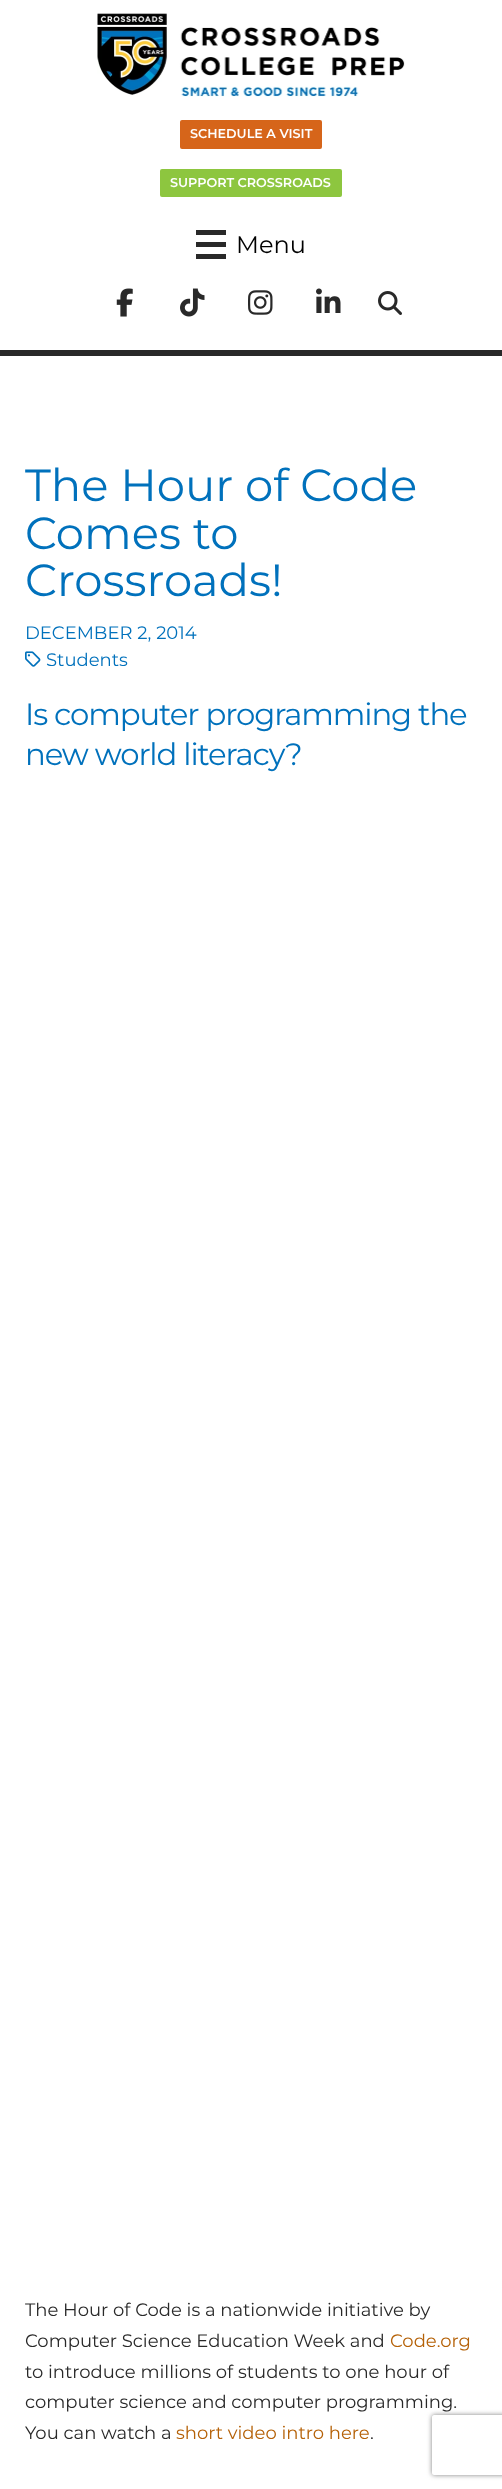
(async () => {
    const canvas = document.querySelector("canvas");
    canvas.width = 502;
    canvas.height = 2489;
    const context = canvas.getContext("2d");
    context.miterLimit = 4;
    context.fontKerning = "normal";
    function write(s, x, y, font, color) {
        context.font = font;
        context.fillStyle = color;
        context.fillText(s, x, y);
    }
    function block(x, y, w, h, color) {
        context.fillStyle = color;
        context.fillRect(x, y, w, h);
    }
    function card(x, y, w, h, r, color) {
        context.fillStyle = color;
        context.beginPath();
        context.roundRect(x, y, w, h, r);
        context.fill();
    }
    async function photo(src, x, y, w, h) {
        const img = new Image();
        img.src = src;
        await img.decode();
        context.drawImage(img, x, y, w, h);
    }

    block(0, 0, 502, 2489, "rgb(255, 255, 255)");
    await photo("media/1.png", 97, 13, 308, 84);
    card(180, 120, 142, 29, 2, "rgb(214, 101, 26)");
    write("SCHEDULE A VISIT", 190, 138, "600 12.75px Montserrat", "rgb(255, 255, 255)");
    card(160, 169, 182, 28, 2, "rgb(141, 198, 63)");
    write("SUPPORT CROSSROADS", 170, 187, "600 12.75px Montserrat", "rgb(255, 255, 255)");
    block(0, 350, 502, 6, "rgb(41, 41, 41)");
    block(196, 230, 30, 5, "rgb(41, 41, 41)");
    block(196, 242, 30, 5, "rgb(41, 41, 41)");
    block(196, 254, 30, 5, "rgb(41, 41, 41)");
    write("Menu", 236, 253, "24px Montserrat", "rgb(0, 0, 0)");
    await photo("media/2.png", 116, 288, 17, 29);
    await photo("media/3.png", 180, 288, 25, 29);
    await photo("media/4.png", 248, 290, 25, 25);
    await photo("media/5.png", 316, 288, 25, 25);
    await photo("media/6.png", 378, 291, 24, 24);
    write("The Hour of Code", 25, 501, "45px Montserrat", "rgb(0, 113, 188)");
    write("Comes to", 25, 549, "45px Montserrat", "rgb(0, 113, 188)");
    write("Crossroads!", 25, 596, "45px Montserrat", "rgb(0, 113, 188)");
    write("DECEMBER 2, 2014", 25, 639, "18px Montserrat", "rgb(0, 113, 188)");
    await photo("media/7.png", 25, 651, 16, 16);
    write("Students", 46, 666, "18px Montserrat", "rgb(0, 113, 188)");
    context.letterSpacing = "-1.1px";
    write("Is computer programming the", 25, 725, "30.75px Montserrat", "rgb(0, 113, 188)");
    write("new world literacy?", 25, 765, "30.75px Montserrat", "rgb(0, 113, 188)");
    context.letterSpacing = "0px";
    write("The Hour of Code is a nationwide initiative by", 25, 2316, "18px Montserrat", "rgb(41, 41, 41)");
    write("Computer Science Education Week and", 25, 2347, "18px Montserrat", "rgb(41, 41, 41)");
    write("Code.org", 390, 2347, "18px Montserrat", "rgb(181, 97, 7)");
    write("to introduce millions of students to one hour of", 25, 2378, "18px Montserrat", "rgb(41, 41, 41)");
    context.save();
    context.beginPath();
    context.moveTo(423, 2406);
    context.lineTo(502, 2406);
    context.lineTo(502, 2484);
    context.lineTo(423, 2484);
    context.closePath();
    context.moveTo(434, 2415);
    context.lineTo(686, 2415);
    context.bezierCurveTo(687, 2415, 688, 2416, 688, 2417);
    context.lineTo(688, 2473);
    context.bezierCurveTo(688, 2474, 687, 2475, 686, 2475);
    context.lineTo(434, 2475);
    context.bezierCurveTo(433, 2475, 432, 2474, 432, 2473);
    context.lineTo(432, 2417);
    context.bezierCurveTo(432, 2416, 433, 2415, 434, 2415);
    context.closePath();
    context.clip("evenodd");
    context.fillStyle = "rgb(128, 128, 128)";
    context.filter = "blur(2.5px)";
    context.beginPath();
    context.roundRect(432, 2415, 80, 60, 2);
    context.fill();
    context.filter = "none";
    context.restore();
    write("computer science and computer programming.", 25, 2408, "18px Montserrat", "rgb(41, 41, 41)");
    write("You can watch a", 25, 2439, "18px Montserrat", "rgb(41, 41, 41)");
    write("short video intro here", 176, 2439, "18px Montserrat", "rgb(181, 97, 7)");
    write(".", 370, 2439, "18px Montserrat", "rgb(41, 41, 41)");
})();
